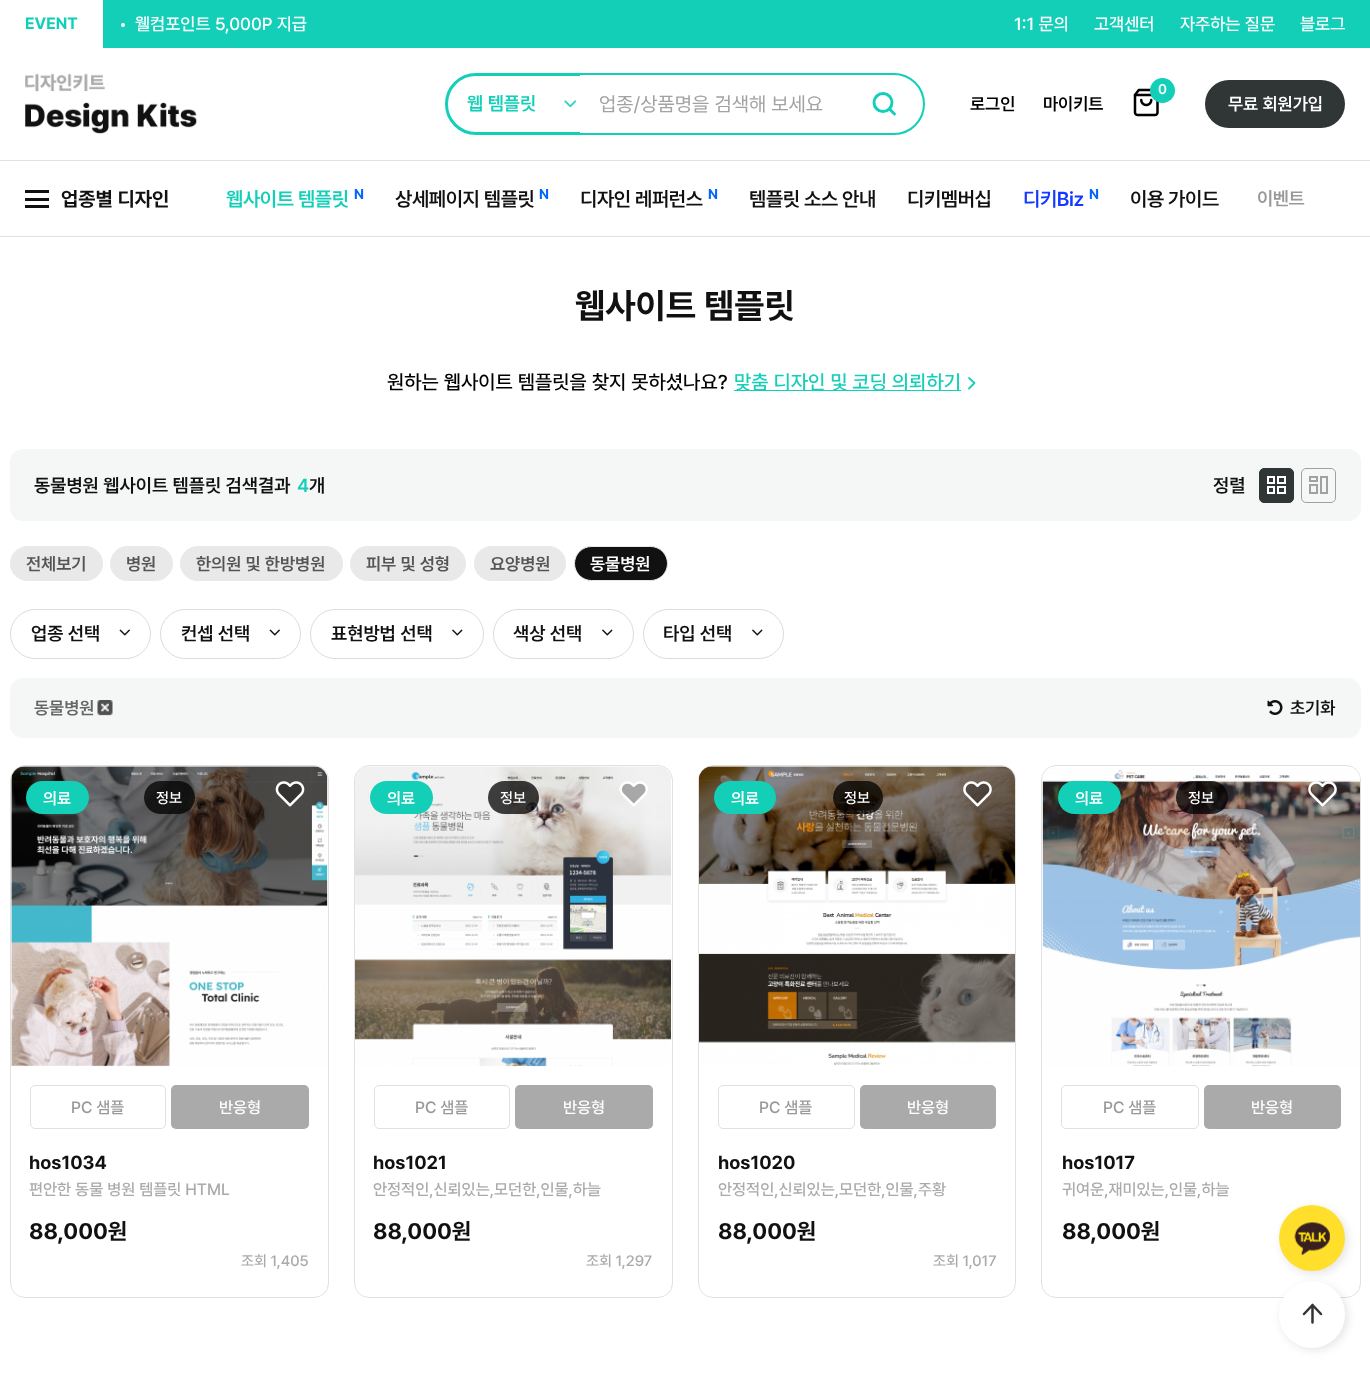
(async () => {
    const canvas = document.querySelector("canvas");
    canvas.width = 1370;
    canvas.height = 1384;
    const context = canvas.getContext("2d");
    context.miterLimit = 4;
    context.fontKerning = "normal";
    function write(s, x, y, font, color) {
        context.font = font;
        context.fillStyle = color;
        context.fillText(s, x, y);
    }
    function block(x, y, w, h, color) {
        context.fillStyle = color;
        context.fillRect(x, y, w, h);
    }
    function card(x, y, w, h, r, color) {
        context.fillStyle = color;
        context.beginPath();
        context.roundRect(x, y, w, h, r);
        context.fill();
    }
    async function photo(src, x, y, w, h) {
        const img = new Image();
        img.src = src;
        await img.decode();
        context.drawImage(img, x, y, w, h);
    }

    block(0, 0, 1370, 1384, "rgb(255, 255, 255)");
    block(103, 0, 1267, 48, "rgb(19, 207, 184)");
    write("EVENT", 25, 29, "bold 16.25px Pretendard", "rgb(19, 207, 184)");
    context.fillStyle = "rgb(255, 255, 255)";
    context.beginPath();
    context.arc(123, 25, 2, 0, Math.PI * 2);
    context.fill();
    write("웰컴포인트 5,000P 지급", 135, 30, "500 17.5px Pretendard", "rgb(255, 255, 255)");
    write("1:1 문의", 1014, 30, "500 17.5px Pretendard", "rgb(255, 255, 255)");
    write("고객센터", 1094, 30, "500 17.5px Pretendard", "rgb(255, 255, 255)");
    write("자주하는 질문", 1180, 30, "500 17.5px Pretendard", "rgb(255, 255, 255)");
    write("블로그", 1300, 30, "500 17.5px Pretendard", "rgb(255, 255, 255)");
    block(0, 236, 1370, 1, "rgb(225, 225, 225)");
    await photo("media/1.png", 25, 73, 172, 61);
    context.beginPath();
    context.roundRect(446.5, 74.5, 477, 59, 29.5);
    context.strokeStyle = "rgb(19, 207, 184)";
    context.lineWidth = 3;
    context.stroke();
    await photo("media/2.png", 564, 100, 13, 8);
    write("웹 템플릿", 467, 110, "600 18.75px Pretendard", "rgb(19, 207, 184)");
    context.fillStyle = "rgb(255, 255, 255)";
    context.beginPath();
    context.roundRect(580, 75, 343, 58, [0, 29, 29, 0]);
    context.fill();
    write("업종/상품명을 검색해 보세요", 599, 111, "20px Pretendard", "rgb(162, 162, 162)");
    context.beginPath();
    context.arc(883, 102.5, 9, 0, Math.PI * 2);
    context.lineWidth = 2.9;
    context.stroke();
    context.beginPath();
    context.moveTo(894.5, 114);
    context.lineTo(889.5, 109);
    context.lineCap = "round";
    context.lineJoin = "round";
    context.stroke();
    await photo("media/3.png", 1133, 88, 26, 29);
    context.fillStyle = "rgb(19, 207, 184)";
    context.beginPath();
    context.arc(1162.5, 90.5, 12.5, 0, Math.PI * 2);
    context.fill();
    write("0", 1158, 94, "600 14px Pretendard", "rgb(255, 255, 255)");
    write("로그인", 970, 110, "600 17.5px Pretendard", "rgb(0, 0, 0)");
    write("마이키트", 1043, 110, "600 17.5px Pretendard", "rgb(0, 0, 0)");
    card(1205, 80, 140, 48, 24, "rgb(47, 54, 53)");
    write("무료 회원가입", 1228, 110, "600 17.5px Pretendard", "rgb(255, 255, 255)");
    block(0, 160, 1370, 1, "rgb(225, 225, 225)");
    block(25, 190, 24, 3, "rgb(17, 17, 17)");
    block(25, 198, 24, 3, "rgb(17, 17, 17)");
    block(25, 205, 24, 3, "rgb(17, 17, 17)");
    write("업종별 디자인", 61, 206, "bold 20px Pretendard", "rgb(17, 17, 17)");
    context.letterSpacing = "-0.4px";
    write("웹사이트 템플릿", 226, 206, "600 20px Pretendard", "rgb(19, 207, 184)");
    context.letterSpacing = "0px";
    write("N", 354, 199, "bold 14px Pretendard", "rgb(0, 102, 255)");
    context.letterSpacing = "-0.4px";
    write("상세페이지 템플릿", 395, 206, "600 20px Pretendard", "rgb(17, 17, 17)");
    context.letterSpacing = "0px";
    write("N", 539, 199, "bold 14px Pretendard", "rgb(0, 102, 255)");
    context.letterSpacing = "-0.4px";
    write("디자인 레퍼런스", 580, 206, "600 20px Pretendard", "rgb(17, 17, 17)");
    context.letterSpacing = "0px";
    write("N", 708, 199, "bold 14px Pretendard", "rgb(0, 102, 255)");
    context.letterSpacing = "-0.4px";
    write("템플릿 소스 안내", 749, 206, "600 20px Pretendard", "rgb(17, 17, 17)");
    write("디키멤버십", 907, 206, "600 20px Pretendard", "rgb(17, 17, 17)");
    write("디키Biz", 1023, 206, "600 20px Pretendard", "rgb(20, 58, 255)");
    context.letterSpacing = "0px";
    write("N", 1089, 199, "bold 14px Pretendard", "rgb(0, 102, 255)");
    context.letterSpacing = "-0.4px";
    write("이용 가이드", 1130, 206, "600 20px Pretendard", "rgb(17, 17, 17)");
    write("이벤트", 1257, 205, "600 18.75px Pretendard", "rgb(153, 153, 153)");
    context.letterSpacing = "0px";
    write("웹사이트 템플릿", 575, 318, "bold 35px Pretendard", "rgb(17, 17, 17)");
    write("원하는 웹사이트 템플릿을 찾지 못하셨나요?", 387, 389, "500 20px Pretendard", "rgb(0, 0, 0)");
    block(734, 390, 227, 1, "rgb(19, 207, 184)");
    write("맞춤 디자인 및 코딩 의뢰하기", 734, 389, "500 20px Pretendard", "rgb(19, 207, 184)");
    context.beginPath();
    context.moveTo(969, 388.5);
    context.lineTo(974.5, 383);
    context.lineTo(969, 378);
    context.lineWidth = 1.8;
    context.stroke();
    card(10, 449, 1351, 72, 13, "rgb(245, 247, 246)");
    write("동물병원 웹사이트 템플릿 검색결과", 34, 492, "600 18.75px Pretendard", "rgb(17, 17, 17)");
    write("4", 297, 492, "600 18.75px Pretendard", "rgb(19, 207, 184)");
    write("개", 309, 492, "600 18.75px Pretendard", "rgb(17, 17, 17)");
    write("정렬", 1213, 492, "600 18.75px Pretendard", "rgb(17, 17, 17)");
    context.fillStyle = "rgb(47, 54, 53)";
    context.beginPath();
    context.roundRect(1259.5, 468.5, 34, 34, 4.5);
    context.fill();
    context.strokeStyle = "rgb(47, 54, 53)";
    context.lineWidth = 1;
    context.lineJoin = "miter";
    context.stroke();
    context.strokeStyle = "rgb(255, 255, 255)";
    context.lineWidth = 2;
    context.strokeRect(1268, 477, 6, 6);
    context.strokeRect(1278, 477, 7, 6);
    context.strokeRect(1278, 487, 7, 6);
    context.strokeRect(1268, 487, 6, 6);
    context.beginPath();
    context.roundRect(1301.5, 468.5, 34, 34, 4.5);
    context.strokeStyle = "rgb(161, 161, 161)";
    context.lineWidth = 1;
    context.stroke();
    context.lineWidth = 2;
    context.strokeRect(1310, 477, 7, 4);
    context.strokeRect(1321, 477, 6, 16);
    context.strokeRect(1310, 485, 7, 8);
    context.fillStyle = "rgb(233, 233, 233)";
    context.beginPath();
    context.roundRect(10.5, 546.5, 92, 34, 17);
    context.fill();
    context.strokeStyle = "rgb(233, 233, 233)";
    context.lineWidth = 1;
    context.stroke();
    write("전체보기", 26, 570, "600 17.5px Pretendard", "rgb(85, 85, 85)");
    context.fillStyle = "rgb(233, 233, 233)";
    context.beginPath();
    context.roundRect(110.5, 546.5, 62, 34, 17);
    context.fill();
    context.stroke();
    write("병원", 126, 570, "600 17.5px Pretendard", "rgb(85, 85, 85)");
    context.fillStyle = "rgb(233, 233, 233)";
    context.beginPath();
    context.roundRect(180.5, 546.5, 162, 34, 17);
    context.fill();
    context.stroke();
    write("한의원 및 한방병원", 196, 570, "600 17.5px Pretendard", "rgb(85, 85, 85)");
    context.fillStyle = "rgb(233, 233, 233)";
    context.beginPath();
    context.roundRect(350.5, 546.5, 115, 34, 17);
    context.fill();
    context.stroke();
    write("피부 및 성형", 366, 570, "600 17.5px Pretendard", "rgb(85, 85, 85)");
    context.fillStyle = "rgb(233, 233, 233)";
    context.beginPath();
    context.roundRect(474.5, 546.5, 91, 34, 17);
    context.fill();
    context.stroke();
    write("요양병원", 490, 570, "600 17.5px Pretendard", "rgb(85, 85, 85)");
    context.fillStyle = "rgb(17, 17, 17)";
    context.beginPath();
    context.roundRect(574.5, 546.5, 93, 34, 17);
    context.fill();
    context.stroke();
    write("동물병원", 590, 570, "600 17.5px Pretendard", "rgb(255, 255, 255)");
    context.beginPath();
    context.roundRect(10.5, 609.5, 140, 49, 24.5);
    context.strokeStyle = "rgb(217, 221, 221)";
    context.stroke();
    write("업종 선택", 31, 640, "600 18.75px Pretendard", "rgb(17, 17, 17)");
    await photo("media/4.png", 119, 629, 11, 7);
    context.beginPath();
    context.roundRect(160.5, 609.5, 140, 49, 24.5);
    context.stroke();
    write("컨셉 선택", 181, 640, "600 18.75px Pretendard", "rgb(17, 17, 17)");
    await photo("media/4.png", 269, 629, 11, 7);
    context.beginPath();
    context.roundRect(310.5, 609.5, 173, 49, 24.5);
    context.stroke();
    write("표현방법 선택", 331, 640, "600 18.75px Pretendard", "rgb(17, 17, 17)");
    await photo("media/5.png", 452, 629, 11, 7);
    context.beginPath();
    context.roundRect(493.5, 609.5, 140, 49, 24.5);
    context.stroke();
    write("색상 선택", 513, 640, "600 18.75px Pretendard", "rgb(17, 17, 17)");
    await photo("media/5.png", 602, 629, 11, 7);
    context.beginPath();
    context.roundRect(643.5, 609.5, 140, 49, 24.5);
    context.stroke();
    write("타입 선택", 663, 640, "600 18.75px Pretendard", "rgb(17, 17, 17)");
    await photo("media/5.png", 752, 629, 11, 7);
    card(10, 678, 1351, 60, 13, "rgb(245, 247, 246)");
    write("동물병원", 34, 714, "600 17.5px Pretendard", "rgb(102, 102, 102)");
    await photo("media/6.png", 97, 700, 16, 16);
    await photo("media/7.png", 1267, 700, 16, 15);
    write("초기화", 1290, 714, "600 17.5px Pretendard", "rgb(17, 17, 17)");
    context.beginPath();
    context.roundRect(10.5, 765.5, 318, 532, 14.5);
    context.strokeStyle = "rgb(225, 225, 225)";
    context.stroke();
    await photo("media/9.png", 11, 766, 317, 301);
    await photo("media/8.png", 275, 781, 30, 26);
    card(26, 781, 63, 33, 16.5, "rgb(19, 207, 184)");
    write("의료", 43, 804, "600 16.25px Pretendard", "rgb(255, 255, 255)");
    card(144, 781, 51, 33, 16.5, "rgba(0, 0, 0, 0.75)");
    write("정보", 156, 803, "500 15px Pretendard", "rgb(255, 255, 255)");
    context.beginPath();
    context.roundRect(30.5, 1085.5, 135, 43, 4.5);
    context.stroke();
    write("PC 샘플", 71, 1113, "500 16.25px Pretendard", "rgb(153, 153, 153)");
    card(171, 1085, 138, 44, 5, "rgb(170, 170, 170)");
    write("반응형", 219, 1113, "500 16.25px Pretendard", "rgb(255, 255, 255)");
    write("hos1034", 29, 1169, "bold 18.75px Pretendard", "rgb(17, 17, 17)");
    write("편안한 동물 병원 템플릿 HTML", 29, 1195, "500 16.25px Pretendard", "rgb(170, 170, 170)");
    write("88,000원", 29, 1239, "bold 22.5px Pretendard", "rgb(17, 17, 17)");
    write("조회 1,405", 241, 1266, "500 15px Pretendard", "rgb(170, 170, 170)");
    context.beginPath();
    context.roundRect(354.5, 765.5, 318, 532, 14.5);
    context.stroke();
    await photo("media/11.png", 355, 766, 316, 301);
    await photo("media/10.png", 619, 781, 29, 26);
    card(370, 781, 63, 33, 16.5, "rgb(19, 207, 184)");
    write("의료", 387, 804, "600 16.25px Pretendard", "rgb(255, 255, 255)");
    card(488, 781, 51, 33, 16.5, "rgba(0, 0, 0, 0.75)");
    write("정보", 500, 803, "500 15px Pretendard", "rgb(255, 255, 255)");
    context.beginPath();
    context.roundRect(374.5, 1085.5, 135, 43, 4.5);
    context.stroke();
    write("PC 샘플", 415, 1113, "500 16.25px Pretendard", "rgb(153, 153, 153)");
    card(515, 1085, 138, 44, 5, "rgb(170, 170, 170)");
    write("반응형", 563, 1113, "500 16.25px Pretendard", "rgb(255, 255, 255)");
    write("hos1021", 373, 1169, "bold 18.75px Pretendard", "rgb(17, 17, 17)");
    write("안정적인,신뢰있는,모던한,인물,하늘", 373, 1195, "500 16.25px Pretendard", "rgb(170, 170, 170)");
    write("88,000원", 373, 1239, "bold 22.5px Pretendard", "rgb(17, 17, 17)");
    write("조회 1,297", 586, 1266, "500 15px Pretendard", "rgb(170, 170, 170)");
    context.beginPath();
    context.roundRect(698.5, 765.5, 317, 532, 14.5);
    context.stroke();
    await photo("media/13.png", 699, 766, 316, 299);
    await photo("media/12.png", 963, 781, 29, 26);
    card(714, 781, 62, 33, 16.5, "rgb(19, 207, 184)");
    write("의료", 731, 804, "600 16.25px Pretendard", "rgb(255, 255, 255)");
    card(833, 781, 50, 33, 16.5, "rgba(0, 0, 0, 0.75)");
    write("정보", 844, 803, "500 15px Pretendard", "rgb(255, 255, 255)");
    context.beginPath();
    context.roundRect(718.5, 1085.5, 136, 43, 4.5);
    context.stroke();
    write("PC 샘플", 759, 1113, "500 16.25px Pretendard", "rgb(153, 153, 153)");
    card(860, 1085, 136, 44, 5, "rgb(170, 170, 170)");
    write("반응형", 907, 1113, "500 16.25px Pretendard", "rgb(255, 255, 255)");
    write("hos1020", 718, 1169, "bold 18.75px Pretendard", "rgb(17, 17, 17)");
    write("안정적인,신뢰있는,모던한,인물,주황", 718, 1195, "500 16.25px Pretendard", "rgb(170, 170, 170)");
    write("88,000원", 718, 1239, "bold 22.5px Pretendard", "rgb(17, 17, 17)");
    write("조회 1,017", 933, 1266, "500 15px Pretendard", "rgb(170, 170, 170)");
    context.beginPath();
    context.roundRect(1041.5, 765.5, 319, 532, 14.5);
    context.stroke();
    await photo("media/14.png", 1042, 767, 318, 300);
    card(1058, 781, 63, 33, 16.5, "rgb(19, 207, 184)");
    write("의료", 1075, 804, "600 16.25px Pretendard", "rgb(255, 255, 255)");
    card(1176, 781, 52, 33, 16.5, "rgba(0, 0, 0, 0.75)");
    write("정보", 1188, 803, "500 15px Pretendard", "rgb(255, 255, 255)");
    context.beginPath();
    context.roundRect(1061.5, 1085.5, 137, 43, 4.5);
    context.stroke();
    write("PC 샘플", 1103, 1113, "500 16.25px Pretendard", "rgb(153, 153, 153)");
    card(1204, 1085, 137, 44, 5, "rgb(170, 170, 170)");
    write("반응형", 1251, 1113, "500 16.25px Pretendard", "rgb(255, 255, 255)");
    write("hos1017", 1062, 1169, "bold 18.75px Pretendard", "rgb(17, 17, 17)");
    write("귀여운,재미있는,인물,하늘", 1062, 1195, "500 16.25px Pretendard", "rgb(170, 170, 170)");
    write("88,000원", 1062, 1239, "bold 22.5px Pretendard", "rgb(17, 17, 17)");
    await photo("media/15.png", 1308, 781, 29, 26);
    context.fillStyle = "rgba(0, 0, 0, 0.1)";
    context.filter = "blur(4px)";
    context.beginPath();
    context.roundRect(1281, 1208, 67, 66, 33);
    context.fill();
    context.filter = "none";
    context.fillStyle = "rgb(255, 223, 44)";
    context.beginPath();
    context.arc(1312, 1238, 33, 0, Math.PI * 2);
    context.fill();
    await photo("media/16.png", 1294, 1222, 36, 33);
    context.fillStyle = "rgba(0, 0, 0, 0.1)";
    context.filter = "blur(4px)";
    context.beginPath();
    context.roundRect(1281, 1284, 67, 66, 33);
    context.fill();
    context.filter = "none";
    card(1279, 1281, 66, 67, 33, "rgb(255, 255, 255)");
    context.beginPath();
    context.moveTo(1312.5, 1322.5);
    context.lineTo(1312.5, 1305);
    context.moveTo(1304, 1314);
    context.lineTo(1312.5, 1305);
    context.lineTo(1321, 1314);
    context.strokeStyle = "rgb(47, 54, 53)";
    context.lineWidth = 2.5;
    context.lineJoin = "round";
    context.stroke();
})();
